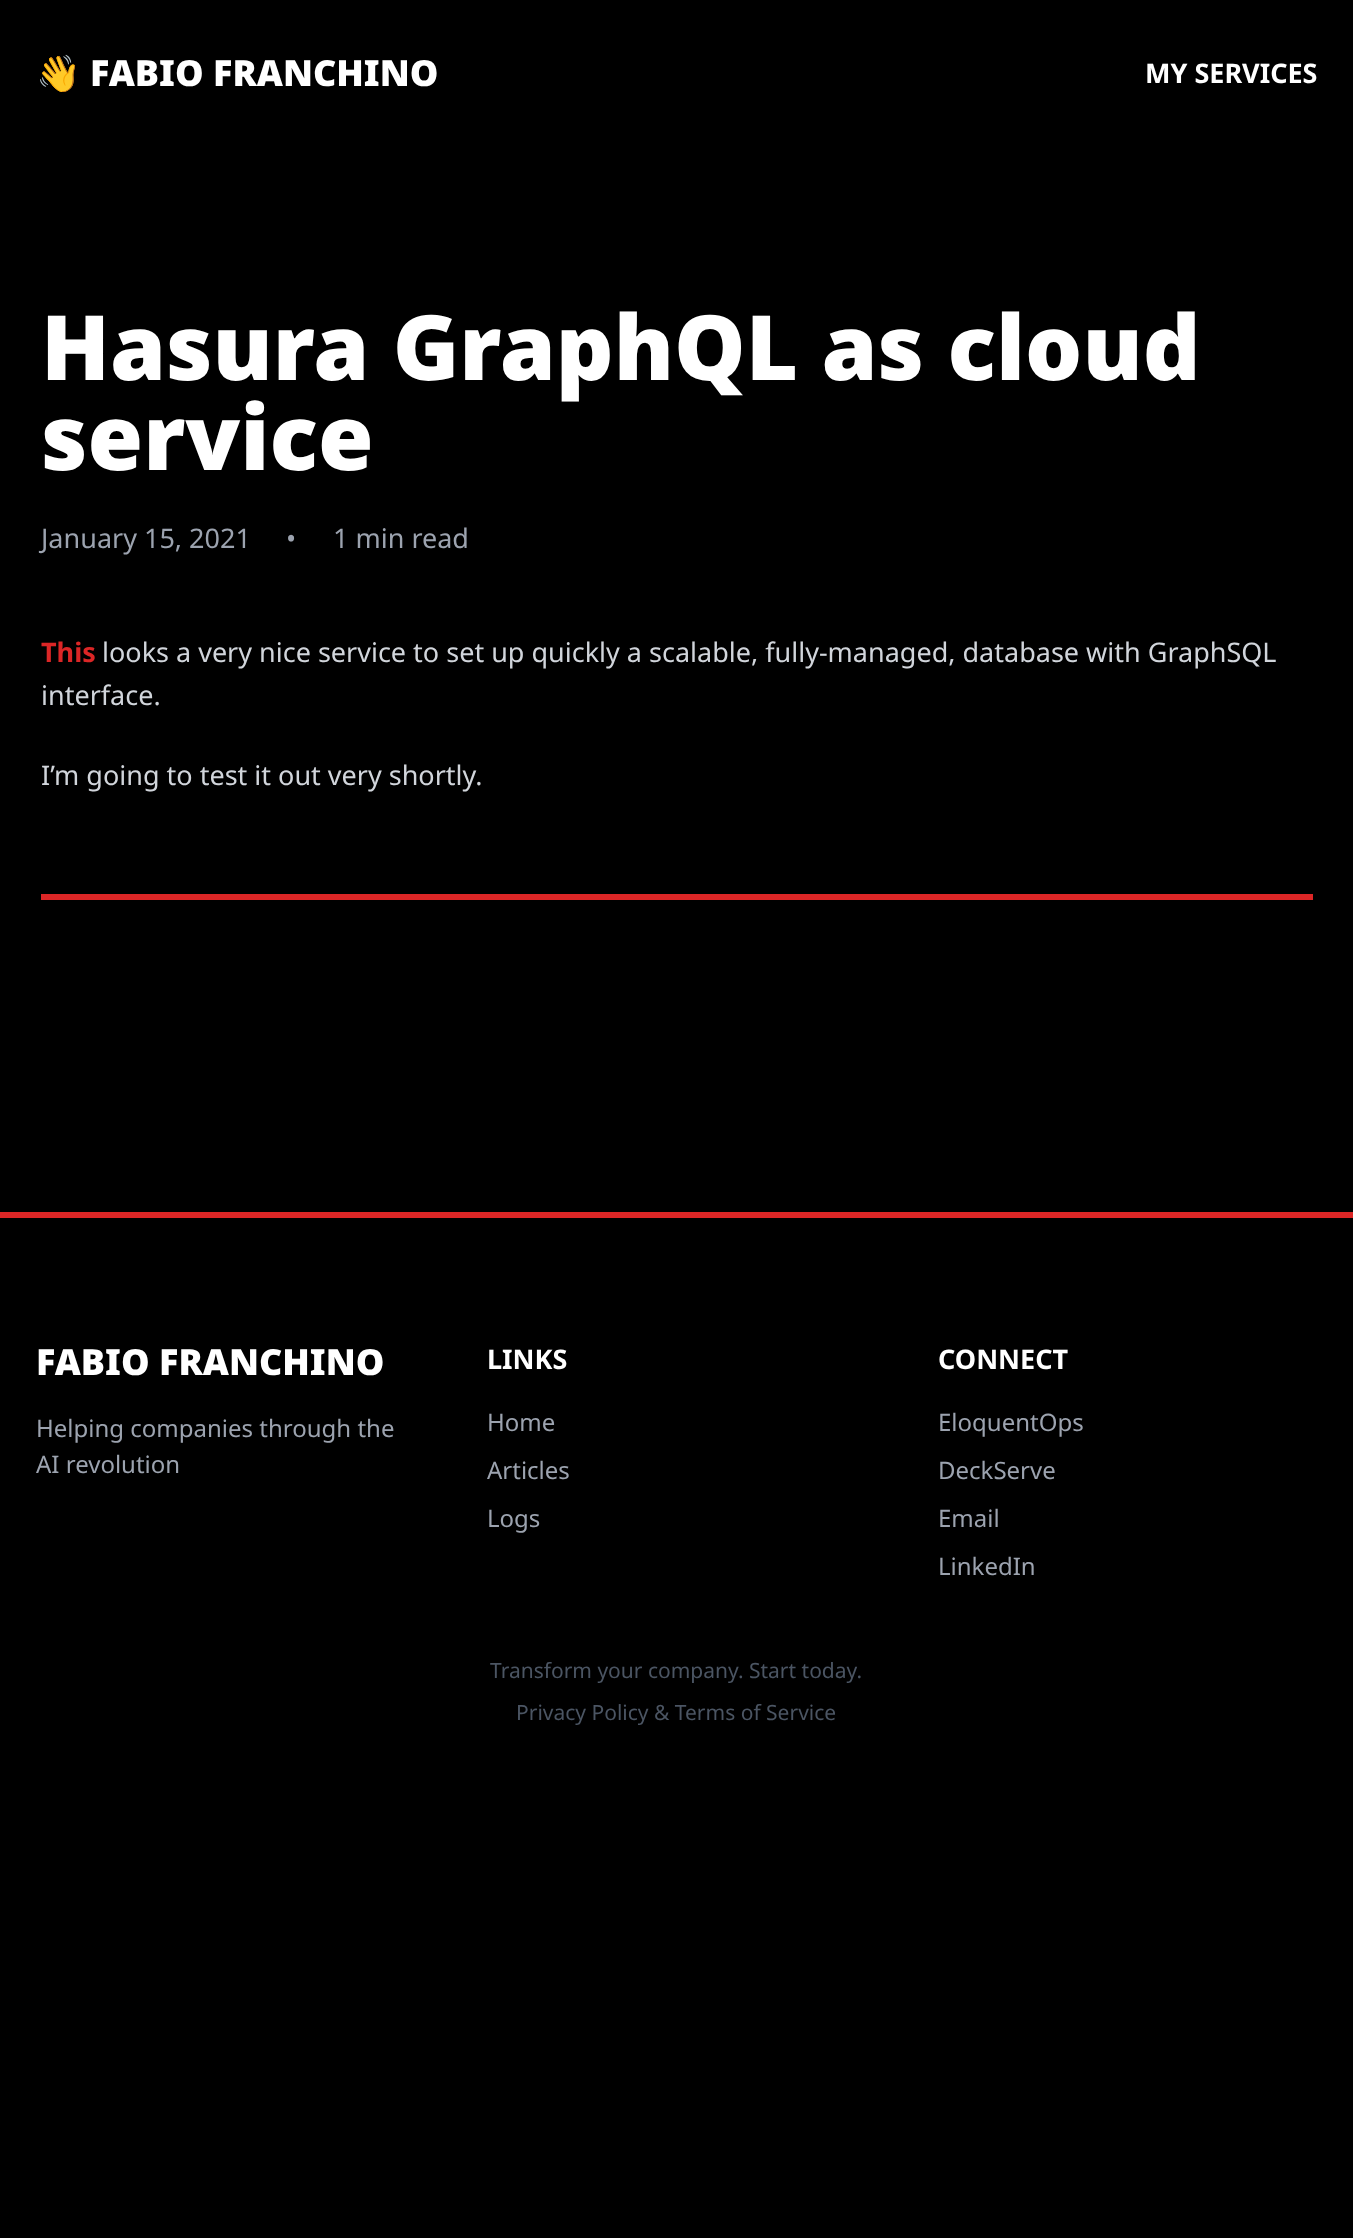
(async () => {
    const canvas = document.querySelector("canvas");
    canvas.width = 1353;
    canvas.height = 2238;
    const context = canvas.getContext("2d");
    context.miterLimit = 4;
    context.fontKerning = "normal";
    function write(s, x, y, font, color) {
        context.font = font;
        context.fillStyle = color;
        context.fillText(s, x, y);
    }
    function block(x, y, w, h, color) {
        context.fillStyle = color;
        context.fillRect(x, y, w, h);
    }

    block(0, 0, 1353, 2238, "rgb(0, 0, 0)");
    write("👋", 36, 86, "bold 36px Noto Color Emoji", "rgb(255, 255, 255)");
    write("FABIO FRANCHINO", 90, 86, "900 36px Noto Sans", "rgb(255, 255, 255)");
    write("MY SERVICES", 1145, 83, "bold 27px Noto Sans", "rgb(255, 255, 255)");
    write("Hasura GraphQL as cloud", 41, 380, "900 90px Noto Sans", "rgb(255, 255, 255)");
    write("service", 41, 470, "900 90px Noto Sans", "rgb(255, 255, 255)");
    write("January 15, 2021", 41, 548, "27px Noto Sans", "rgb(156, 163, 175)");
    write("•", 286, 548, "27px Noto Sans", "rgb(156, 163, 175)");
    write("1 min read", 333, 548, "27px Noto Sans", "rgb(156, 163, 175)");
    write("This", 41, 662, "bold 27px Noto Sans", "rgb(220, 38, 38)");
    write("looks a very nice service to set up quickly a scalable, fully-managed, database with GraphSQL", 102, 662, "27px Noto Sans", "rgb(209, 213, 219)");
    write("interface.", 41, 705, "27px Noto Sans", "rgb(209, 213, 219)");
    write("I’m going to test it out very shortly.", 41, 785, "27px Noto Sans", "rgb(209, 213, 219)");
    block(41, 894, 1272, 6, "rgb(220, 38, 38)");
    block(0, 1212, 1353, 6, "rgb(220, 38, 38)");
    write("FABIO FRANCHINO", 36, 1375, "900 36px Noto Sans", "rgb(255, 255, 255)");
    write("Helping companies through the", 36, 1437, "24px Noto Sans", "rgb(156, 163, 175)");
    write("AI revolution", 36, 1473, "24px Noto Sans", "rgb(156, 163, 175)");
    write("LINKS", 487, 1369, "bold 27px Noto Sans", "rgb(255, 255, 255)");
    write("Home", 487, 1431, "24px Noto Sans", "rgb(156, 163, 175)");
    write("Articles", 487, 1479, "24px Noto Sans", "rgb(156, 163, 175)");
    write("Logs", 487, 1527, "24px Noto Sans", "rgb(156, 163, 175)");
    write("CONNECT", 938, 1369, "bold 27px Noto Sans", "rgb(255, 255, 255)");
    write("EloquentOps", 938, 1431, "24px Noto Sans", "rgb(156, 163, 175)");
    write("DeckServe", 938, 1479, "24px Noto Sans", "rgb(156, 163, 175)");
    write("Email", 938, 1527, "24px Noto Sans", "rgb(156, 163, 175)");
    write("LinkedIn", 938, 1575, "24px Noto Sans", "rgb(156, 163, 175)");
    write("Transform your company. Start today.", 490, 1678, "21px Noto Sans", "rgb(75, 85, 99)");
    write("Privacy Policy & Terms of Service", 516, 1720, "21px Noto Sans", "rgb(75, 85, 99)");
})();
